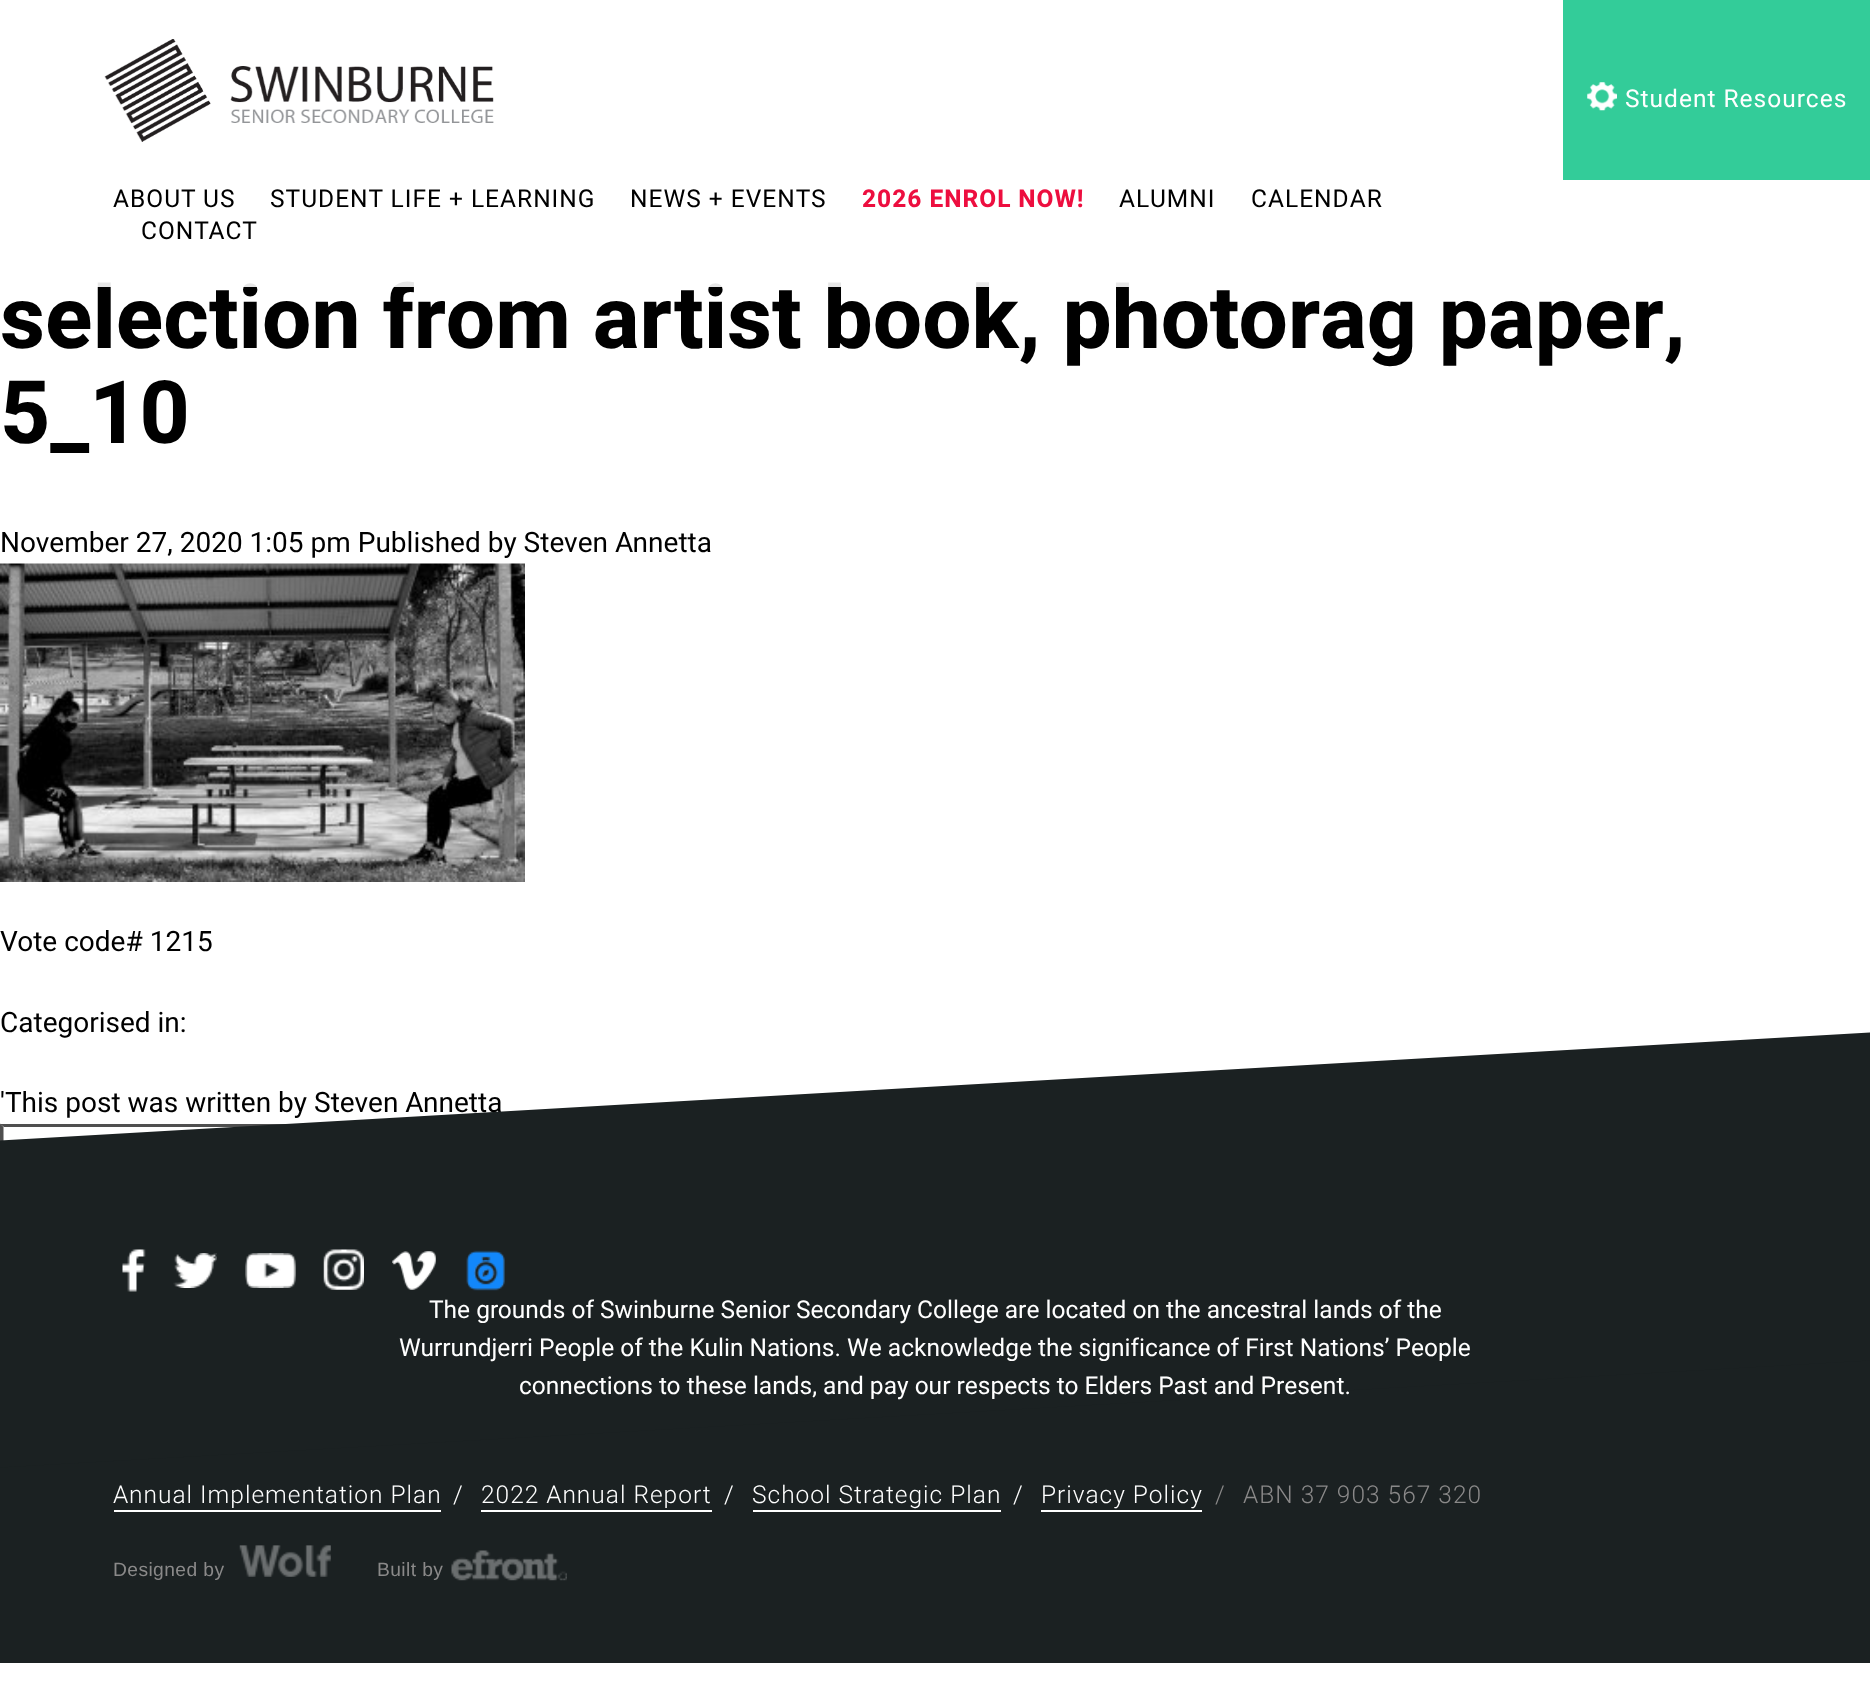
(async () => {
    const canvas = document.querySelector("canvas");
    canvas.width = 1870;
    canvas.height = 1683;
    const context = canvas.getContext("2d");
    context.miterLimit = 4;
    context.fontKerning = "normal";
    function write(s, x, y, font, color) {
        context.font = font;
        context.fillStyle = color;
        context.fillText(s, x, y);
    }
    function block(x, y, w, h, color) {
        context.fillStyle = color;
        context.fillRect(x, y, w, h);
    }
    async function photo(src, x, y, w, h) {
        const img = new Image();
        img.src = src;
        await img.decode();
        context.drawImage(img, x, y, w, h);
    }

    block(0, 0, 1870, 1683, "rgb(255, 255, 255)");
    write("selection from artist book, photorag paper,", 0, 348, "bold 87.5px Heebo", "rgb(0, 0, 0)");
    block(97, 281, 1032, 6, "rgba(255, 255, 255, 0.9)");
    await photo("media/1.png", 104, 39, 390, 103);
    block(1563, 0, 307, 180, "rgb(51, 204, 153)");
    await photo("media/2.png", 1587, 82, 30, 29);
    context.letterSpacing = "1px";
    write("Student Resources", 1625, 107, "24.5px Heebo", "rgb(255, 255, 255)");
    write("ABOUT US", 113, 207, "24.5px Heebo", "rgb(0, 0, 0)");
    write("STUDENT LIFE + LEARNING", 270, 207, "24.5px Heebo", "rgb(0, 0, 0)");
    write("NEWS + EVENTS", 630, 207, "24.5px Heebo", "rgb(0, 0, 0)");
    write("2026 ENROL NOW!", 862, 207, "bold 24.5px Heebo", "rgb(237, 14, 63)");
    write("ALUMNI", 1119, 207, "24.5px Heebo", "rgb(0, 0, 0)");
    write("CALENDAR", 1251, 207, "24.5px Heebo", "rgb(0, 0, 0)");
    write("CONTACT", 141, 239, "24.5px Heebo", "rgb(0, 0, 0)");
    context.letterSpacing = "0px";
    write("5_10", 0, 443, "bold 87.5px Heebo", "rgb(0, 0, 0)");
    write("November 27, 2020 1:05 pm Published by Steven Annetta", 0, 552, "28px Heebo", "rgb(0, 0, 0)");
    await photo("media/3.png", 0, 563, 525, 319);
    write("Vote code# 1215", 0, 951, "28px Heebo", "rgb(0, 0, 0)");
    write("Categorised in:", 0, 1032, "28px Heebo", "rgb(0, 0, 0)");
    write("'This post was written by Steven Annetta", 0, 1112, "28px Heebo", "rgb(0, 0, 0)");
    context.fillStyle = "rgb(79, 79, 79)";
    context.beginPath();
    context.moveTo(0, 1124);
    context.lineTo(324, 1124);
    context.lineTo(320, 1127);
    context.lineTo(4, 1127);
    context.closePath();
    context.fill();
    context.beginPath();
    context.moveTo(0, 1162);
    context.lineTo(0, 1123.5);
    context.lineTo(3.5, 1127);
    context.lineTo(3.5, 1158.5);
    context.closePath();
    context.fill();
    block(0, 1360, 1870, 303, "rgb(27, 33, 34)");
    context.beginPath();
    context.moveTo(-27, 1142);
    context.lineTo(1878, 1032);
    context.lineTo(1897, 1359);
    context.lineTo(-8, 1468);
    context.closePath();
    context.fill();
    await photo("media/4.png", 122, 1249, 24, 43);
    await photo("media/5.png", 173, 1253, 44, 35);
    await photo("media/6.png", 245, 1253, 51, 35);
    await photo("media/7.png", 323, 1249, 41, 41);
    await photo("media/8.png", 392, 1251, 44, 39);
    await photo("media/9.png", 466, 1250, 39, 41);
    write("The grounds of Swinburne Senior Secondary College are located on the ancestral lands of the", 429, 1318, "24.5px Heebo", "rgb(255, 255, 255)");
    write("Wurrundjerri People of the Kulin Nations. We acknowledge the significance of First Nations’ People", 399, 1356, "24.5px Heebo", "rgb(255, 255, 255)");
    write("connections to these lands, and pay our respects to Elders Past and Present.", 519, 1394, "24.5px Heebo", "rgb(255, 255, 255)");
    context.letterSpacing = "1px";
    write("Annual Implementation Plan", 113, 1503, "300 24.5px Heebo", "rgb(255, 255, 255)");
    block(114, 1510, 327, 2, "rgb(255, 255, 255)");
    write("/", 453, 1503, "300 24.5px Heebo", "rgb(255, 255, 255)");
    write("2022 Annual Report", 481, 1503, "300 24.5px Heebo", "rgb(255, 255, 255)");
    block(481, 1510, 231, 2, "rgb(255, 255, 255)");
    write("/", 724, 1503, "300 24.5px Heebo", "rgb(255, 255, 255)");
    write("School Strategic Plan", 752, 1503, "300 24.5px Heebo", "rgb(255, 255, 255)");
    block(753, 1510, 248, 2, "rgb(255, 255, 255)");
    write("/", 1013, 1503, "300 24.5px Heebo", "rgb(255, 255, 255)");
    write("Privacy Policy", 1041, 1503, "300 24.5px Heebo", "rgb(255, 255, 255)");
    block(1041, 1510, 161, 2, "rgb(255, 255, 255)");
    write("/", 1215, 1503, "300 24.5px Heebo", "rgb(138, 137, 137)");
    write("ABN 37 903 567 320", 1243, 1503, "300 24.5px Heebo", "rgb(138, 137, 137)");
    context.letterSpacing = "0.4px";
    write("Designed by", 113, 1576, "19.25px Liberation Sans", "rgb(138, 137, 137)");
    await photo("media/10.png", 239, 1545, 92, 32);
    write("Built by", 377, 1576, "19.25px Liberation Sans", "rgb(138, 137, 137)");
    await photo("media/11.png", 451, 1550, 116, 31);
})();
